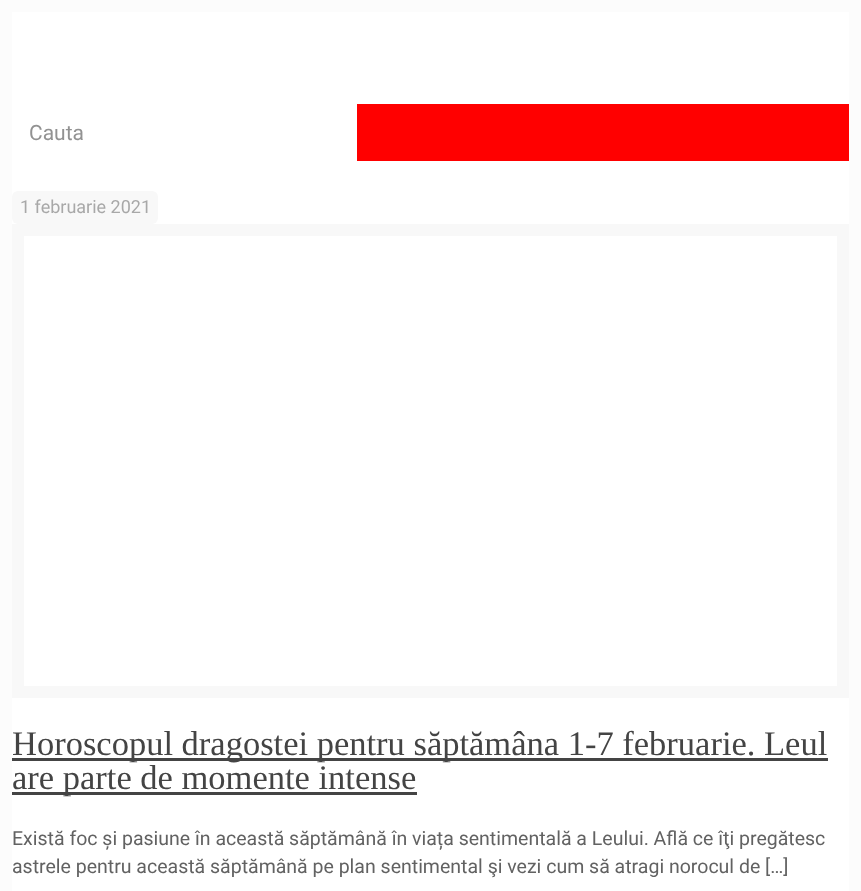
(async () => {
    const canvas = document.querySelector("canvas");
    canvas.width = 861;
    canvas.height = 891;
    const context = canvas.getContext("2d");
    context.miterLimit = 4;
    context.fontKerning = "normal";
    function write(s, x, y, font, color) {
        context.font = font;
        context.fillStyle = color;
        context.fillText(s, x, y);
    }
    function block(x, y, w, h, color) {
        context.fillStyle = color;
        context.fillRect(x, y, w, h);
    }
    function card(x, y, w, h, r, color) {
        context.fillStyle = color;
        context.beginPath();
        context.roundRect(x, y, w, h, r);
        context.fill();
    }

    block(0, 0, 861, 891, "rgb(252, 252, 252)");
    block(12, 12, 837, 879, "rgb(255, 255, 255)");
    block(357, 104, 492, 57, "rgb(255, 0, 0)");
    write("Cauta", 29, 140, "21px Roboto", "rgb(146, 146, 146)");
    card(12, 191, 146, 33, 6, "rgb(248, 248, 248)");
    write("1 februarie 2021", 20, 213, "18px Roboto", "rgb(168, 168, 168)");
    context.strokeStyle = "rgb(248, 248, 248)";
    context.lineWidth = 12;
    context.strokeRect(18, 230, 825, 462);
    block(12, 758, 816, 3, "rgb(68, 68, 68)");
    write("Horoscopul dragostei pentru săptămâna 1-7 februarie. Leul", 12, 755, "34.5px Liberation Serif", "rgb(68, 68, 68)");
    block(12, 792, 405, 3, "rgb(68, 68, 68)");
    write("are parte de momente intense", 12, 789, "34.5px Liberation Serif", "rgb(68, 68, 68)");
    write("Există foc și pasiune în această săptămână în viața sentimentală a Leului. Află ce îţi pregătesc", 12, 845, "19.5px Roboto", "rgb(98, 98, 98)");
    write("astrele pentru această săptămână pe plan sentimental şi vezi cum să atragi norocul de […]", 12, 873, "19.5px Roboto", "rgb(98, 98, 98)");
})();
